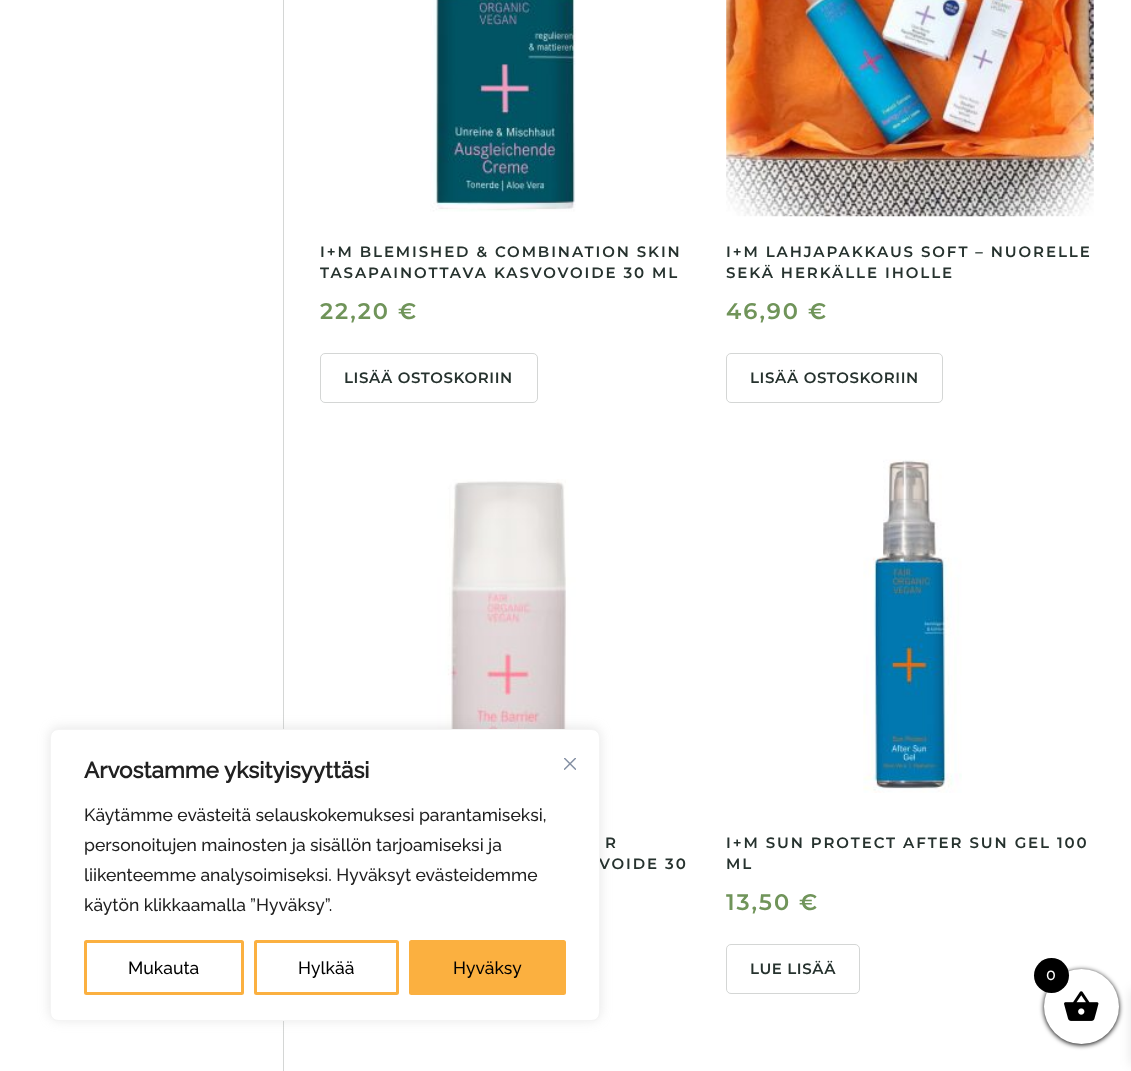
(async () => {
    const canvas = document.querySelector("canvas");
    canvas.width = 1131;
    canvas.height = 1071;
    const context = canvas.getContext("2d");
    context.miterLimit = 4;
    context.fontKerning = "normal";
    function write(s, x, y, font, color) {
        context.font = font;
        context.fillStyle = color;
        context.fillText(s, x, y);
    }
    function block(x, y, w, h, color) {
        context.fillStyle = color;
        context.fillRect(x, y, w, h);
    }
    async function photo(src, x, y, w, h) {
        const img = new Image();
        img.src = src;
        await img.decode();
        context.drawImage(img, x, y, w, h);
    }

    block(0, 0, 1131, 1071, "rgb(255, 255, 255)");
    block(283, 0, 1, 1071, "rgb(212, 214, 213)");
    await photo("media/4.png", 437, 479, 139, 250);
    context.fillStyle = "rgba(172, 171, 171, 0.3)";
    context.filter = "blur(6px)";
    context.beginPath();
    context.roundRect(50, 728, 550, 292, 8);
    context.fill();
    context.filter = "none";
    context.letterSpacing = "1.9px";
    write("VOIDE 30", 599, 869, "100 15px Montserrat", "rgb(38, 50, 46)");
    context.fillStyle = "rgb(255, 255, 255)";
    context.beginPath();
    context.roundRect(50.5, 729.5, 549, 291, 7.5);
    context.fill();
    context.strokeStyle = "rgb(244, 244, 244)";
    context.stroke();
    context.letterSpacing = "0px";
    write("Arvostamme yksityisyyttäsi", 84, 778, "bold 22.5px Raleway", "rgb(33, 33, 33)");
    write("Käytämme evästeitä selauskokemuksesi parantamiseksi,", 84, 821, "100 17.5px Raleway", "rgb(33, 33, 33)");
    write("personoitujen mainosten ja sisällön tarjoamiseksi ja", 84, 851, "100 17.5px Raleway", "rgb(33, 33, 33)");
    write("liikenteemme analysoimiseksi. Hyväksyt evästeidemme", 84, 881, "100 17.5px Raleway", "rgb(33, 33, 33)");
    write("käytön klikkaamalla ”Hyväksy”.", 84, 911, "100 17.5px Raleway", "rgb(33, 33, 33)");
    context.beginPath();
    context.roundRect(85.5, 941.5, 157, 52, 1);
    context.strokeStyle = "rgb(251, 176, 64)";
    context.lineWidth = 3;
    context.stroke();
    write("Mukauta", 128, 974, "100 17.5px Raleway", "rgb(0, 0, 0)");
    context.beginPath();
    context.roundRect(255.5, 941.5, 142, 52, 1);
    context.stroke();
    write("Hylkää", 298, 974, "100 17.5px Raleway", "rgb(0, 0, 0)");
    context.fillStyle = "rgb(251, 176, 64)";
    context.beginPath();
    context.roundRect(410.5, 941.5, 154, 52, 1);
    context.fill();
    context.stroke();
    write("Hyväksy", 453, 974, "100 17.5px Raleway", "rgb(0, 0, 0)");
    await photo("media/1.png", 564, 758, 12, 12);
    await photo("media/2.png", 430, 0, 146, 212);
    context.letterSpacing = "1.9px";
    write("I+M BLEMISHED & COMBINATION SKIN", 320, 257, "100 15px Montserrat", "rgb(38, 50, 46)");
    write("TASAPAINOTTAVA KASVOVOIDE 30 ML", 320, 278, "100 15px Montserrat", "rgb(38, 50, 46)");
    write("22,20 €", 320, 319, "100 22.5px Montserrat", "rgb(112, 148, 90)");
    context.beginPath();
    context.roundRect(320.5, 353.5, 217, 49, 4.5);
    context.strokeStyle = "rgb(212, 214, 213)";
    context.lineWidth = 1;
    context.stroke();
    context.letterSpacing = "0.6px";
    write("LISÄÄ OSTOSKORIIN", 344, 383, "100 15px Montserrat", "rgb(38, 50, 46)");
    await photo("media/3.png", 726, 0, 368, 217);
    context.letterSpacing = "1.9px";
    write("I+M LAHJAPAKKAUS SOFT – NUORELLE", 726, 257, "100 15px Montserrat", "rgb(38, 50, 46)");
    write("SEKÄ HERKÄLLE IHOLLE", 726, 278, "100 15px Montserrat", "rgb(38, 50, 46)");
    write("46,90 €", 726, 319, "100 22.5px Montserrat", "rgb(112, 148, 90)");
    context.beginPath();
    context.roundRect(726.5, 353.5, 216, 49, 4.5);
    context.stroke();
    context.letterSpacing = "0.6px";
    write("LISÄÄ OSTOSKORIIN", 750, 383, "100 15px Montserrat", "rgb(38, 50, 46)");
    context.letterSpacing = "1.9px";
    write("R", 605, 848, "100 15px Montserrat", "rgb(38, 50, 46)");
    await photo("media/5.png", 863, 459, 99, 334);
    write("I+M SUN PROTECT AFTER SUN GEL 100", 726, 848, "100 15px Montserrat", "rgb(38, 50, 46)");
    write("ML", 726, 869, "100 15px Montserrat", "rgb(38, 50, 46)");
    write("13,50 €", 726, 910, "100 22.5px Montserrat", "rgb(112, 148, 90)");
    context.beginPath();
    context.roundRect(726.5, 944.5, 133, 49, 4.5);
    context.stroke();
    context.letterSpacing = "0.6px";
    write("LUE LISÄÄ", 750, 974, "100 15px Montserrat", "rgb(38, 50, 46)");
    context.fillStyle = "rgb(0, 0, 0)";
    context.filter = "blur(2.5px)";
    context.beginPath();
    context.roundRect(1044, 970, 75, 75, 37.5);
    context.fill();
    context.filter = "none";
    context.fillStyle = "rgba(0, 0, 0, 0.1)";
    context.filter = "blur(6px)";
    context.beginPath();
    context.rect(1131, 990, 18, 75);
    context.fill();
    context.filter = "none";
    context.fillStyle = "rgb(255, 255, 255)";
    context.beginPath();
    context.arc(1081.5, 1006.5, 37.5, 0, Math.PI * 2);
    context.fill();
    await photo("media/6.png", 1064, 991, 35, 30);
    context.fillStyle = "rgb(0, 0, 0)";
    context.beginPath();
    context.arc(1051.5, 975.5, 17.5, 0, Math.PI * 2);
    context.fill();
    context.letterSpacing = "0px";
    write("0", 1046, 980, "100 16px Raleway", "rgb(255, 255, 255)");
})();
